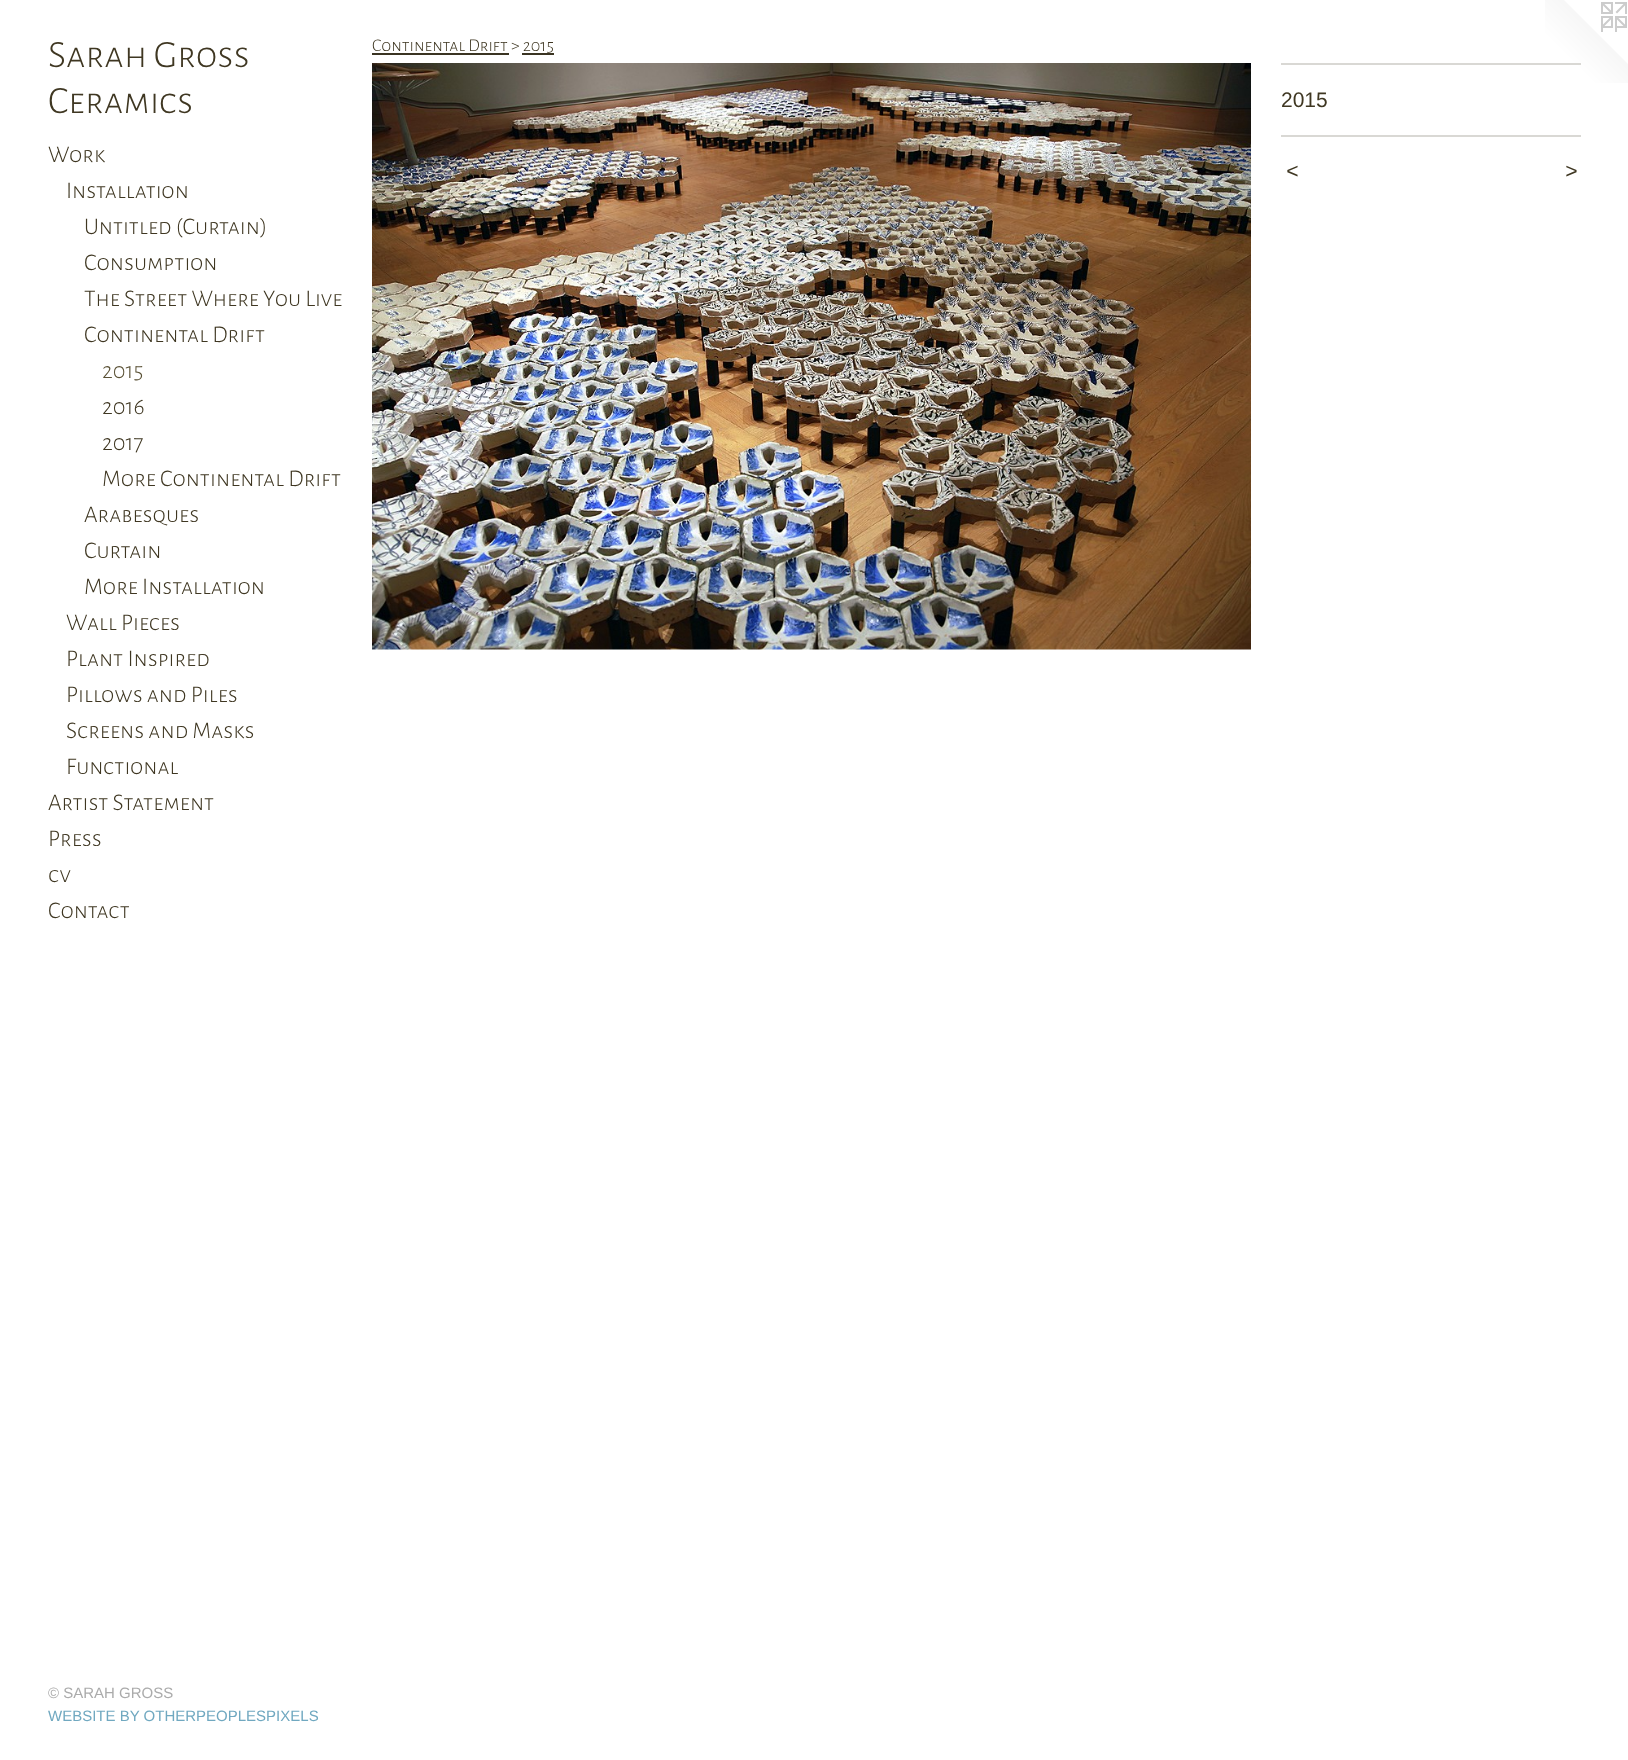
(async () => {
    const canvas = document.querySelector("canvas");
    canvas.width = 1628;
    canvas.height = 1760;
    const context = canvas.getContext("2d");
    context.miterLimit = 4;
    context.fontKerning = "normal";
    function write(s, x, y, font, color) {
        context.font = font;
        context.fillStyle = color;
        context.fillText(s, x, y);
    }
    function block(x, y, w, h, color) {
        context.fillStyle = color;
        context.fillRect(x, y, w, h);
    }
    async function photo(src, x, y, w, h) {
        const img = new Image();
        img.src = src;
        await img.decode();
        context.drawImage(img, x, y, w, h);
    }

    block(0, 0, 1628, 1760, "rgb(255, 255, 255)");
    write("Sarah Gross", 48, 67, "300 39px Alegreya Sans SC", "rgb(63, 55, 34)");
    write("Ceramics", 48, 113, "300 39px Alegreya Sans SC", "rgb(63, 55, 34)");
    write("Work", 48, 162, "300 24px Alegreya Sans SC", "rgb(63, 55, 34)");
    write("Installation", 66, 198, "300 24px Alegreya Sans SC", "rgb(63, 55, 34)");
    write("Untitled (Curtain)", 84, 234, "300 24px Alegreya Sans SC", "rgb(63, 55, 34)");
    write("Consumption", 84, 270, "300 24px Alegreya Sans SC", "rgb(63, 55, 34)");
    write("The Street Where You Live", 84, 306, "300 24px Alegreya Sans SC", "rgb(63, 55, 34)");
    write("Continental Drift", 84, 342, "300 24px Alegreya Sans SC", "rgb(63, 55, 34)");
    write("2015", 102, 378, "300 24px Alegreya Sans SC", "rgb(90, 81, 53)");
    write("2016", 102, 414, "300 24px Alegreya Sans SC", "rgb(63, 55, 34)");
    write("2017", 102, 450, "300 24px Alegreya Sans SC", "rgb(63, 55, 34)");
    write("More Continental Drift", 102, 486, "300 24px Alegreya Sans SC", "rgb(63, 55, 34)");
    write("Arabesques", 84, 522, "300 24px Alegreya Sans SC", "rgb(63, 55, 34)");
    write("Curtain", 84, 558, "300 24px Alegreya Sans SC", "rgb(63, 55, 34)");
    write("More Installation", 84, 594, "300 24px Alegreya Sans SC", "rgb(63, 55, 34)");
    write("Wall Pieces", 66, 630, "300 24px Alegreya Sans SC", "rgb(63, 55, 34)");
    write("Plant Inspired", 66, 666, "300 24px Alegreya Sans SC", "rgb(63, 55, 34)");
    write("Pillows and Piles", 66, 702, "300 24px Alegreya Sans SC", "rgb(63, 55, 34)");
    write("Screens and Masks", 66, 738, "300 24px Alegreya Sans SC", "rgb(63, 55, 34)");
    write("Functional", 66, 774, "300 24px Alegreya Sans SC", "rgb(63, 55, 34)");
    write("Artist Statement", 48, 810, "300 24px Alegreya Sans SC", "rgb(63, 55, 34)");
    write("Press", 48, 846, "300 24px Alegreya Sans SC", "rgb(63, 55, 34)");
    write("cv", 48, 882, "300 24px Alegreya Sans SC", "rgb(63, 55, 34)");
    write("Contact", 48, 918, "300 24px Alegreya Sans SC", "rgb(63, 55, 34)");
    write("© SARAH GROSS", 48, 1698, "15px Liberation Sans", "rgb(171, 171, 171)");
    write("WEBSITE BY OTHERPEOPLESPIXELS", 48, 1721, "15px Liberation Sans", "rgb(112, 168, 192)");
    write("Continental Drift > 2015", 372, 51, "300 18px Alegreya Sans SC", "rgb(63, 55, 34)");
    block(372, 53, 137, 2, "rgb(58, 52, 34)");
    block(522, 53, 32, 2, "rgb(58, 52, 34)");
    await photo("media/1.png", 372, 63, 879, 587);
    await photo("media/2.png", 1545, 0, 83, 83);
    block(1281, 63, 300, 2, "rgb(217, 216, 212)");
    write("2015", 1281, 107, "21px Liberation Sans", "rgb(63, 55, 34)");
    block(1281, 135, 300, 2, "rgb(217, 216, 212)");
    context.letterSpacing = "2px";
    write("<", 1286, 178, "italic 21px Liberation Sans", "rgb(63, 55, 34)");
    write(">", 1565, 178, "italic 21px Liberation Sans", "rgb(63, 55, 34)");
})();
